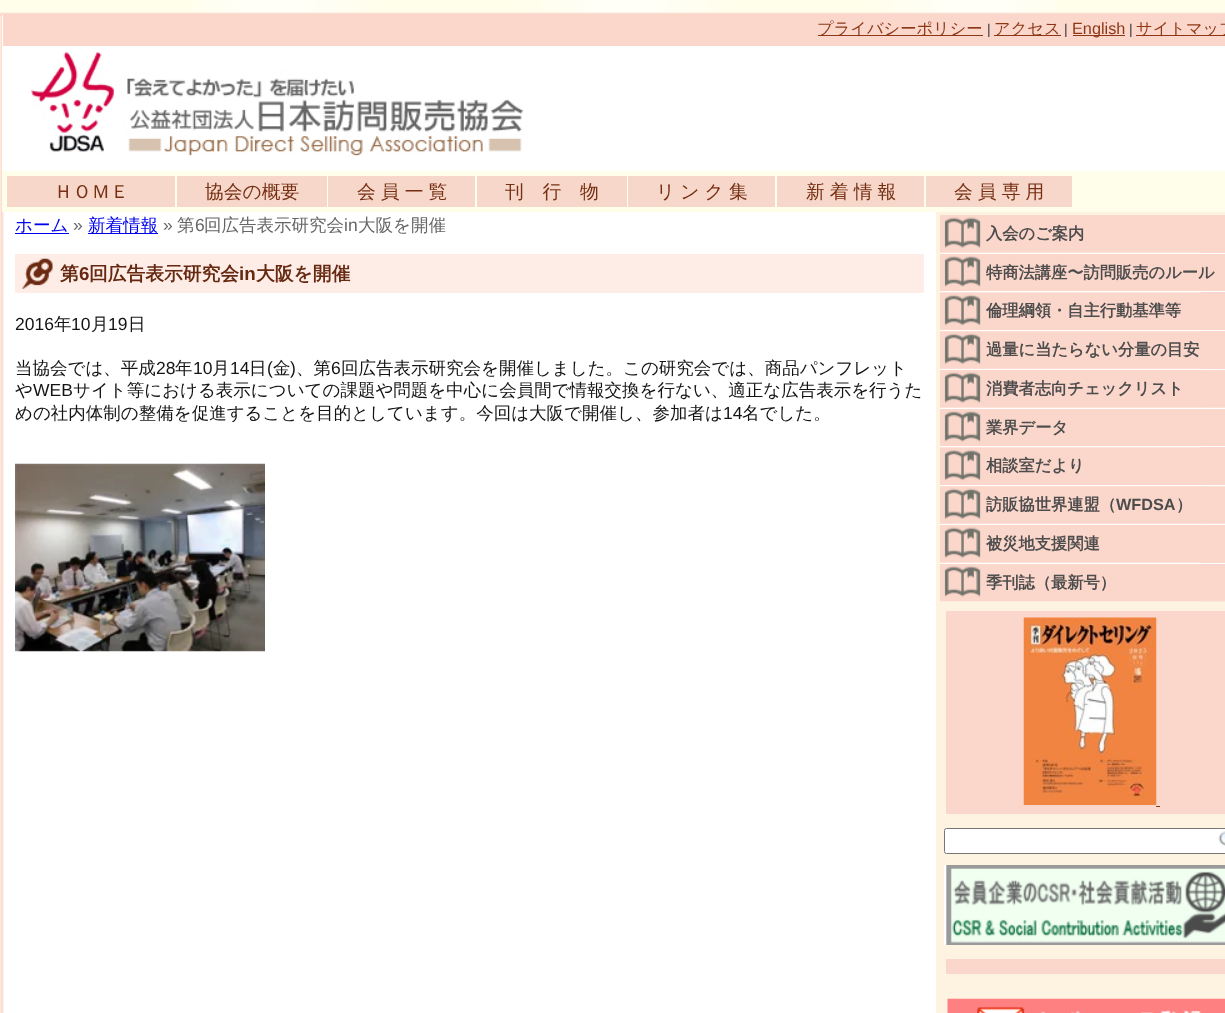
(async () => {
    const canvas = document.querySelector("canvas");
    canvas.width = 1225;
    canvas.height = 1013;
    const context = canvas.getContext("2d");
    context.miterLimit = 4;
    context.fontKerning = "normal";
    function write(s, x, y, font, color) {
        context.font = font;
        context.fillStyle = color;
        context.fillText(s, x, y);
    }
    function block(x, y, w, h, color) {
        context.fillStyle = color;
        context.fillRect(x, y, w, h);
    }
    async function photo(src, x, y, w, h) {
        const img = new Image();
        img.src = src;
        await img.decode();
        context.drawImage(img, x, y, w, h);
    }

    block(0, 0, 1225, 1013, "rgb(255, 254, 235)");
    await photo("media/1.png", 193, 0, 864, 14);
    await photo("media/2.png", 0, 12, 1225, 5);
    await photo("media/3.png", 0, 12, 1225, 5);
    await photo("media/4.png", 0, 16, 936, 997);
    block(2, 15, 1223, 156, "rgb(255, 255, 255)");
    block(3, 15, 1222, 31, "rgb(251, 214, 203)");
    block(818, 35, 165, 1, "rgb(140, 56, 23)");
    write("プライバシーポリシー", 817, 34, "500 16.25px WenQuanYi Zen Hei", "rgb(140, 56, 23)");
    write("|", 987, 34, "14px Liberation Sans", "rgb(56, 56, 56)");
    block(994, 35, 67, 1, "rgb(140, 56, 23)");
    write("アクセス", 994, 34, "500 16.25px WenQuanYi Zen Hei", "rgb(140, 56, 23)");
    write("|", 1064, 34, "14px Liberation Sans", "rgb(56, 56, 56)");
    block(1073, 35, 52, 1, "rgb(140, 56, 23)");
    write("English", 1072, 34, "16.25px Liberation Sans", "rgb(140, 56, 23)");
    write("|", 1129, 34, "14px Liberation Sans", "rgb(56, 56, 56)");
    block(1136, 35, 89, 1, "rgb(140, 56, 23)");
    write("サイトマップ", 1136, 34, "500 16.25px WenQuanYi Zen Hei", "rgb(140, 56, 23)");
    await photo("media/5.png", 31, 52, 493, 104);
    block(2, 171, 934, 41, "rgb(255, 254, 235)");
    block(7, 176, 168, 31, "rgb(246, 215, 202)");
    write("ＨＯＭＥ", 54, 198, "500 18.75px WenQuanYi Zen Hei", "rgb(118, 47, 19)");
    block(177, 176, 150, 31, "rgb(246, 215, 202)");
    write("協会の概要", 205, 198, "500 18.75px WenQuanYi Zen Hei", "rgb(118, 47, 19)");
    block(328, 176, 147, 31, "rgb(246, 215, 202)");
    context.wordSpacing = "-0.5px";
    write("会 員 一 覧", 357, 198, "500 18.75px WenQuanYi Zen Hei", "rgb(118, 47, 19)");
    block(477, 176, 150, 31, "rgb(246, 215, 202)");
    context.wordSpacing = "0px";
    write("刊　行　物", 505, 198, "500 18.75px WenQuanYi Zen Hei", "rgb(118, 47, 19)");
    block(628, 176, 147, 31, "rgb(246, 215, 202)");
    context.wordSpacing = "-0.5px";
    write("リ ン ク 集", 656, 198, "500 18.75px WenQuanYi Zen Hei", "rgb(118, 47, 19)");
    block(777, 176, 147, 31, "rgb(246, 215, 202)");
    write("新 着 情 報", 806, 198, "500 18.75px WenQuanYi Zen Hei", "rgb(118, 47, 19)");
    block(926, 176, 146, 31, "rgb(246, 215, 202)");
    write("会 員 専 用", 954, 198, "500 18.75px WenQuanYi Zen Hei", "rgb(118, 47, 19)");
    context.wordSpacing = "0px";
    write("ホーム", 15, 231, "500 17.5px WenQuanYi Zen Hei", "rgb(0, 0, 238)");
    block(15, 233, 54, 1, "rgb(0, 0, 238)");
    write("»", 73, 231, "17.5px Liberation Sans", "rgb(102, 102, 102)");
    block(88, 233, 70, 1, "rgb(0, 0, 238)");
    write("新着情報", 88, 231, "500 17.5px WenQuanYi Zen Hei", "rgb(0, 0, 238)");
    write("»", 163, 231, "17.5px Liberation Sans", "rgb(102, 102, 102)");
    write("第", 177, 231, "500 17.5px WenQuanYi Zen Hei", "rgb(102, 102, 102)");
    write("6", 195, 231, "17.5px Liberation Sans", "rgb(102, 102, 102)");
    write("回広告表示研究会", 204, 231, "500 17.5px WenQuanYi Zen Hei", "rgb(102, 102, 102)");
    write("in", 344, 231, "17.5px Liberation Sans", "rgb(102, 102, 102)");
    write("大阪を開催", 358, 231, "500 17.5px WenQuanYi Zen Hei", "rgb(102, 102, 102)");
    block(15, 254, 909, 39, "rgb(255, 246, 242)");
    await photo("media/6.png", 15, 254, 909, 39);
    await photo("media/7.png", 22, 258, 31, 31);
    write("第", 60, 280, "bold 18.75px WenQuanYi Zen Hei", "rgb(101, 40, 16)");
    write("6", 79, 280, "bold 18.75px Liberation Sans", "rgb(101, 40, 16)");
    write("回広告表示研究会", 89, 280, "bold 18.75px WenQuanYi Zen Hei", "rgb(101, 40, 16)");
    write("in", 239, 280, "bold 18.75px Liberation Sans", "rgb(101, 40, 16)");
    write("大阪を開催", 256, 280, "bold 18.75px WenQuanYi Zen Hei", "rgb(101, 40, 16)");
    write("2016", 15, 330, "17.5px Liberation Sans", "rgb(20, 20, 20)");
    write("年", 54, 330, "500 17.5px WenQuanYi Zen Hei", "rgb(20, 20, 20)");
    write("10", 71, 330, "17.5px Liberation Sans", "rgb(20, 20, 20)");
    write("月", 91, 330, "500 17.5px WenQuanYi Zen Hei", "rgb(20, 20, 20)");
    write("19", 108, 330, "17.5px Liberation Sans", "rgb(20, 20, 20)");
    write("日", 128, 330, "500 17.5px WenQuanYi Zen Hei", "rgb(20, 20, 20)");
    write("当協会では、平成", 15, 374, "500 17.5px WenQuanYi Zen Hei", "rgb(20, 20, 20)");
    write("28", 156, 374, "17.5px Liberation Sans", "rgb(20, 20, 20)");
    write("年", 175, 374, "500 17.5px WenQuanYi Zen Hei", "rgb(20, 20, 20)");
    write("10", 193, 374, "17.5px Liberation Sans", "rgb(20, 20, 20)");
    write("月", 212, 374, "500 17.5px WenQuanYi Zen Hei", "rgb(20, 20, 20)");
    write("14", 230, 374, "17.5px Liberation Sans", "rgb(20, 20, 20)");
    write("日", 249, 374, "500 17.5px WenQuanYi Zen Hei", "rgb(20, 20, 20)");
    write("(", 267, 374, "17.5px Liberation Sans", "rgb(20, 20, 20)");
    write("金", 273, 374, "500 17.5px WenQuanYi Zen Hei", "rgb(20, 20, 20)");
    write(")", 290, 374, "17.5px Liberation Sans", "rgb(20, 20, 20)");
    write("、第", 296, 374, "500 17.5px WenQuanYi Zen Hei", "rgb(20, 20, 20)");
    write("6", 331, 374, "17.5px Liberation Sans", "rgb(20, 20, 20)");
    write("回広告表示研究会を開催しました。この研究会では、商品パンフレット", 341, 374, "500 17.5px WenQuanYi Zen Hei", "rgb(20, 20, 20)");
    write("や", 15, 396, "500 17.5px WenQuanYi Zen Hei", "rgb(20, 20, 20)");
    write("WEB", 33, 396, "17.5px Liberation Sans", "rgb(20, 20, 20)");
    write("サイト等における表示についての課題や問題を中心に会員間で情報交換を行ない、適正な広告表示を行うた", 73, 396, "500 17.5px WenQuanYi Zen Hei", "rgb(20, 20, 20)");
    write("めの社内体制の整備を促進することを目的としています。今回は大阪で開催し、参加者は", 15, 419, "500 17.5px WenQuanYi Zen Hei", "rgb(20, 20, 20)");
    write("14", 723, 419, "17.5px Liberation Sans", "rgb(20, 20, 20)");
    write("名でした。", 742, 419, "500 17.5px WenQuanYi Zen Hei", "rgb(20, 20, 20)");
    await photo("media/8.png", 15, 463, 250, 189);
    block(936, 212, 289, 801, "rgb(254, 242, 225)");
    await photo("media/9.png", 940, 215, 261, 38);
    block(1201, 215, 24, 38, "rgb(251, 214, 203)");
    write("入会のご案内", 986, 239, "bold 16.25px WenQuanYi Zen Hei", "rgb(77, 77, 77)");
    block(940, 253, 285, 1, "rgb(255, 255, 255)");
    await photo("media/10.png", 940, 254, 262, 37);
    await photo("media/11.png", 1201, 254, 24, 37);
    write("特商法講座〜訪問販売のルール", 986, 278, "bold 16.25px WenQuanYi Zen Hei", "rgb(77, 77, 77)");
    block(940, 291, 285, 1, "rgb(255, 255, 255)");
    await photo("media/12.png", 940, 292, 261, 38);
    block(1201, 292, 24, 38, "rgb(251, 214, 203)");
    write("倫理綱領・自主行動基準等", 986, 316, "bold 16.25px WenQuanYi Zen Hei", "rgb(77, 77, 77)");
    block(940, 330, 285, 1, "rgb(255, 255, 255)");
    await photo("media/13.png", 940, 331, 261, 38);
    block(1201, 331, 24, 38, "rgb(251, 214, 203)");
    write("過量に当たらない分量の目安", 986, 355, "bold 16.25px WenQuanYi Zen Hei", "rgb(77, 77, 77)");
    block(940, 369, 285, 1, "rgb(255, 255, 255)");
    await photo("media/14.png", 940, 370, 262, 38);
    await photo("media/15.png", 1201, 370, 24, 38);
    write("消費者志向チェックリスト", 986, 394, "bold 16.25px WenQuanYi Zen Hei", "rgb(77, 77, 77)");
    block(940, 408, 285, 1, "rgb(255, 255, 255)");
    await photo("media/16.png", 940, 409, 261, 37);
    block(1201, 409, 24, 37, "rgb(251, 214, 203)");
    write("業界データ", 986, 433, "bold 16.25px WenQuanYi Zen Hei", "rgb(77, 77, 77)");
    block(940, 446, 285, 1, "rgb(255, 255, 255)");
    await photo("media/17.png", 940, 447, 261, 38);
    block(1201, 447, 24, 38, "rgb(251, 214, 203)");
    write("相談室だより", 986, 471, "bold 16.25px WenQuanYi Zen Hei", "rgb(77, 77, 77)");
    block(940, 485, 285, 1, "rgb(255, 255, 255)");
    await photo("media/18.png", 940, 486, 262, 38);
    await photo("media/19.png", 1201, 486, 24, 38);
    write("訪販協世界連盟（", 986, 510, "bold 16.25px WenQuanYi Zen Hei", "rgb(77, 77, 77)");
    write("WFDSA", 1116, 510, "bold 16.25px Liberation Sans", "rgb(77, 77, 77)");
    write("）", 1176, 510, "bold 16.25px WenQuanYi Zen Hei", "rgb(77, 77, 77)");
    block(940, 524, 285, 1, "rgb(255, 255, 255)");
    await photo("media/9.png", 940, 525, 261, 38);
    block(1201, 525, 24, 38, "rgb(251, 214, 203)");
    write("被災地支援関連", 986, 549, "bold 16.25px WenQuanYi Zen Hei", "rgb(77, 77, 77)");
    block(940, 563, 285, 1, "rgb(255, 255, 255)");
    await photo("media/20.png", 940, 564, 262, 38);
    await photo("media/21.png", 1201, 564, 24, 38);
    write("季刊誌（最新号）", 986, 588, "bold 16.25px WenQuanYi Zen Hei", "rgb(77, 77, 77)");
    block(946, 611, 279, 203, "rgb(251, 214, 203)");
    await photo("media/22.png", 1023, 617, 134, 188);
    block(1156, 806, 4, 1, "rgb(140, 56, 23)");
    context.fillStyle = "rgb(255, 255, 255)";
    context.beginPath();
    context.roundRect(944.5, 828.5, 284, 25, 2);
    context.fill();
    context.strokeStyle = "rgb(118, 118, 118)";
    context.stroke();
    await photo("media/23.png", 1218, 831, 7, 15);
    block(944, 865, 3, 80, "rgb(255, 255, 255)");
    await photo("media/24.png", 946, 865, 279, 80);
    block(946, 959, 279, 15, "rgb(251, 214, 203)");
    await photo("media/25.png", 947, 998, 278, 15);
})();
